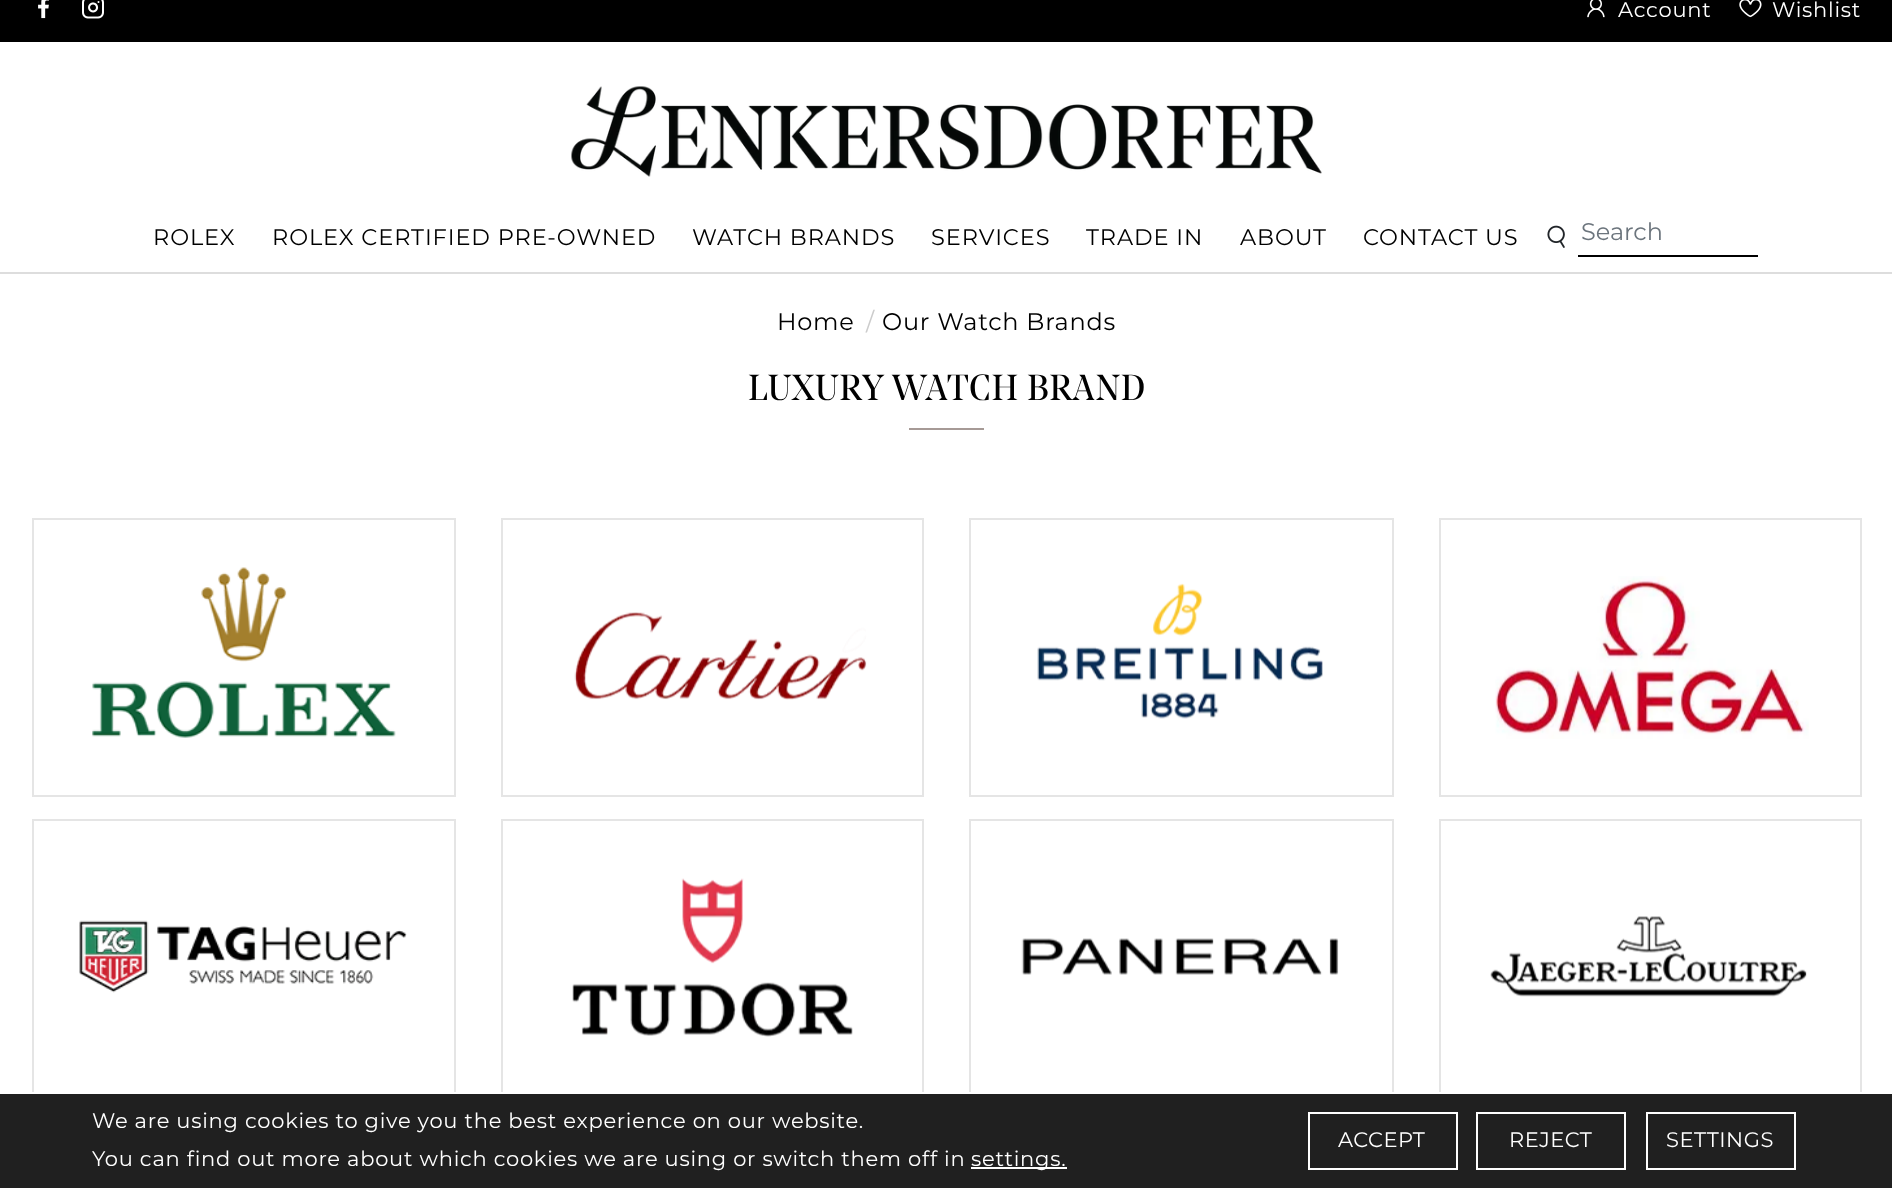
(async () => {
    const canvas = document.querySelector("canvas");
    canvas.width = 1892;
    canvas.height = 1188;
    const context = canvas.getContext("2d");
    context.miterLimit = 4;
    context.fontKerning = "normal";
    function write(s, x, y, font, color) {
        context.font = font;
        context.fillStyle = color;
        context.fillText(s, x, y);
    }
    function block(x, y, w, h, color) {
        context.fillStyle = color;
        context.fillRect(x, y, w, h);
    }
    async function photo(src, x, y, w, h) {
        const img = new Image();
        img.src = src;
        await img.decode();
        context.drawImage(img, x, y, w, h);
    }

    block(0, 0, 1892, 1188, "rgb(255, 255, 255)");
    block(0, 272, 1892, 2, "rgb(221, 221, 221)");
    block(0, 0, 1892, 42, "rgb(0, 0, 0)");
    await photo("media/1.png", 38, 0, 11, 19);
    await photo("media/2.png", 82, 0, 22, 19);
    await photo("media/3.png", 1587, 0, 18, 18);
    context.letterSpacing = "0.75px";
    write("Account", 1618, 17, "21px Montserrat", "rgb(255, 255, 255)");
    await photo("media/4.png", 1739, 0, 23, 18);
    write("Wishlist", 1772, 17, "21px Montserrat", "rgb(255, 255, 255)");
    await photo("media/5.png", 571, 86, 751, 91);
    context.letterSpacing = "0.9px";
    write("ROLEX", 153, 245, "22.5px Montserrat", "rgb(0, 0, 0)");
    write("ROLEX CERTIFIED PRE-OWNED", 272, 245, "22.5px Montserrat", "rgb(0, 0, 0)");
    write("WATCH BRANDS", 692, 245, "22.5px Montserrat", "rgb(0, 0, 0)");
    write("SERVICES", 931, 245, "22.5px Montserrat", "rgb(0, 0, 0)");
    write("TRADE IN", 1086, 245, "22.5px Montserrat", "rgb(0, 0, 0)");
    write("ABOUT", 1240, 245, "22.5px Montserrat", "rgb(0, 0, 0)");
    write("CONTACT US", 1363, 245, "22.5px Montserrat", "rgb(0, 0, 0)");
    await photo("media/6.png", 1547, 225, 18, 23);
    block(1578, 255, 180, 2, "rgb(0, 0, 0)");
    context.letterSpacing = "0px";
    write("Search", 1581, 240, "24px Montserrat", "rgb(108, 117, 125)");
    context.letterSpacing = "0.75px";
    write("Home", 777, 330, "24px Montserrat", "rgb(0, 0, 0)");
    write("/", 866, 330, "24px Montserrat", "rgb(204, 204, 204)");
    write("Our Watch Brands", 882, 330, "24px Montserrat", "rgb(0, 0, 0)");
    write("LUXURY WATCH BRAND", 748, 400, "36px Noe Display", "rgb(0, 0, 0)");
    block(909, 428, 75, 2, "rgb(166, 154, 150)");
    context.strokeStyle = "rgb(229, 229, 229)";
    context.lineWidth = 2;
    context.strokeRect(33, 519, 422, 277);
    await photo("media/7.png", 92, 567, 304, 171);
    context.strokeRect(502, 519, 421, 277);
    await photo("media/8.png", 574, 612, 293, 88);
    context.strokeRect(970, 519, 423, 277);
    await photo("media/9.png", 1037, 583, 286, 136);
    context.strokeRect(1440, 519, 421, 277);
    await photo("media/10.png", 1495, 576, 314, 163);
    context.strokeRect(33, 820, 422, 276);
    await photo("media/11.png", 79, 920, 328, 73);
    context.strokeRect(502, 820, 421, 276);
    await photo("media/12.png", 572, 878, 281, 159);
    context.strokeRect(970, 820, 423, 276);
    await photo("media/13.png", 1021, 938, 318, 37);
    context.strokeRect(1440, 820, 421, 276);
    await photo("media/14.png", 1490, 916, 317, 81);
    block(0, 1094, 1892, 94, "rgb(32, 32, 32)");
    block(32, 1092, 1830, 2, "rgb(255, 255, 255)");
    write("We are using cookies to give you the best experience on our website.", 92, 1128, "21px Montserrat", "rgb(255, 255, 255)");
    write("You can find out more about which cookies we are using or switch them off in", 92, 1166, "21px Montserrat", "rgb(255, 255, 255)");
    block(971, 1167, 96, 2, "rgb(255, 255, 255)");
    write("settings.", 971, 1166, "21px Montserrat", "rgb(255, 255, 255)");
    context.strokeStyle = "rgb(255, 255, 255)";
    context.strokeRect(1309, 1113, 148, 56);
    context.letterSpacing = "0.5px";
    write("ACCEPT", 1338, 1147, "21px Montserrat", "rgb(255, 255, 255)");
    context.strokeRect(1477, 1113, 148, 56);
    write("REJECT", 1509, 1147, "21px Montserrat", "rgb(255, 255, 255)");
    context.strokeRect(1647, 1113, 148, 56);
    write("SETTINGS", 1666, 1147, "21px Montserrat", "rgb(255, 255, 255)");
})();
